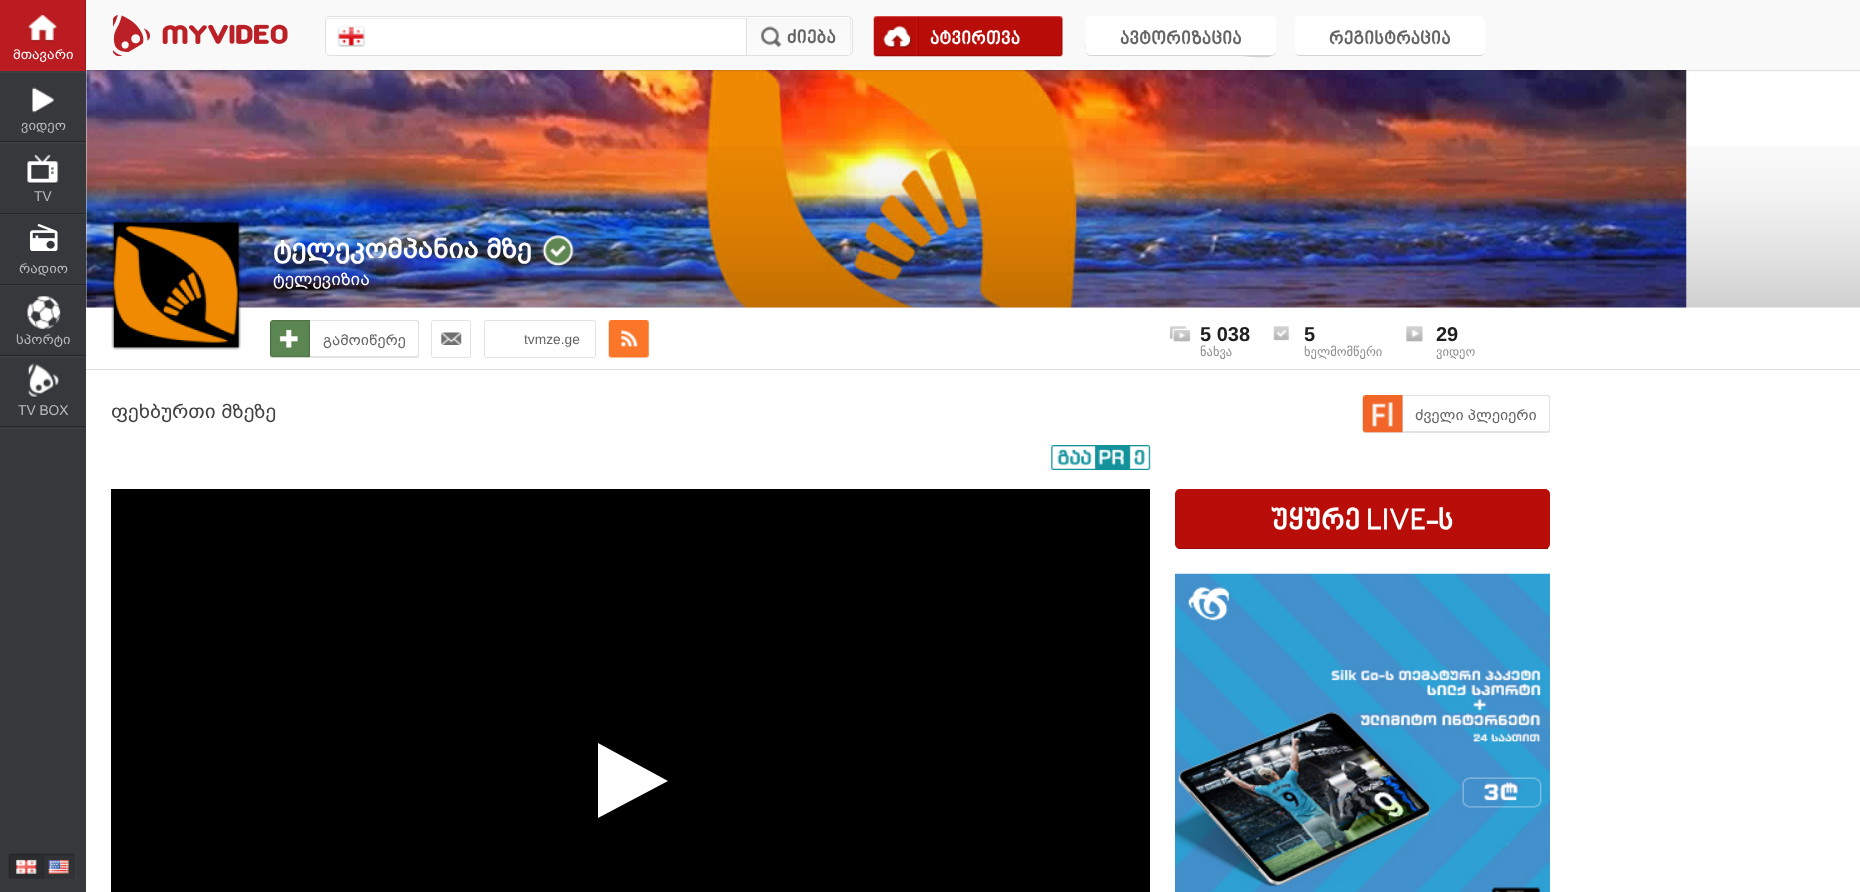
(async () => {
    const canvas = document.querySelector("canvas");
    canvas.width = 1860;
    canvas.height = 892;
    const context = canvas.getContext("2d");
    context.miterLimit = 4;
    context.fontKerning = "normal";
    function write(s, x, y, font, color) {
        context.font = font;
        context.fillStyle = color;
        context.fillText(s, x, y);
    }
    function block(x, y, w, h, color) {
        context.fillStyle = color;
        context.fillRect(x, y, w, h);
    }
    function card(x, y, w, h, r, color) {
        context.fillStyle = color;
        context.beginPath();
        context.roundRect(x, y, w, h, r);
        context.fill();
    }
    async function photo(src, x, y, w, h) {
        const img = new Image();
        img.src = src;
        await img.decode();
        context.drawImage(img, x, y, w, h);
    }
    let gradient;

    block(0, 0, 1860, 892, "rgb(255, 255, 255)");
    block(0, 73, 86, 819, "rgb(55, 56, 59)");
    block(0, 71, 86, 2, "rgb(61, 62, 65)");
    block(0, 0, 86, 71, "rgb(187, 28, 33)");
    await photo("media/13.png", 86, 70, 1601, 238);
    context.fillStyle = "rgba(0, 0, 0, 0.36)";
    context.filter = "blur(1px)";
    context.beginPath();
    context.rect(86, 0, 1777, 70);
    context.fill();
    context.filter = "none";
    block(86, 0, 1774, 70, "rgb(249, 249, 249)");
    await photo("media/1.png", 113, 15, 175, 41);
    card(325, 16, 528, 40, 5, "rgb(255, 255, 255)");
    context.fillStyle = "rgb(235, 235, 235)";
    context.beginPath();
    context.moveTo(330, 19);
    context.lineTo(848, 19);
    context.lineTo(850, 20);
    context.bezierCurveTo(850, 19, 848, 18, 847, 18);
    context.lineTo(330, 18);
    context.bezierCurveTo(328, 18, 326, 20, 326, 22);
    context.bezierCurveTo(326, 20, 328, 19, 330, 19);
    context.closePath();
    context.fill();
    context.beginPath();
    context.roundRect(325.5, 16.5, 527, 39, 4.5);
    context.strokeStyle = "rgb(224, 224, 224)";
    context.stroke();
    await photo("media/2.png", 337, 26, 28, 21);
    gradient = context.createLinearGradient(799, 17, 799, 55);
    gradient.addColorStop(0, "rgb(248, 248, 248)");
    gradient.addColorStop(1, "rgb(252, 252, 252)");
    context.fillStyle = gradient;
    context.fillRect(747, 18, 104, 37);
    block(850, 18, 1, 37, "rgba(0, 0, 0, 0.05)");
    await photo("media/3.png", 760, 26, 22, 22);
    block(746, 18, 1, 37, "rgb(224, 224, 224)");
    write("ძიება", 787, 44, "bold 18.75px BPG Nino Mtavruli", "rgb(100, 100, 100)");
    await photo("media/4.png", 873, 16, 190, 41);
    write("ატვირთვა", 930, 45, "bold 18.75px BPG Nino Mtavruli", "rgb(255, 255, 255)");
    context.fillStyle = "rgb(212, 212, 212)";
    context.beginPath();
    context.moveTo(1086, 21);
    context.lineTo(1086, 42);
    context.bezierCurveTo(1086, 46, 1084, 56, 1091, 56);
    context.lineTo(1241, 56);
    context.bezierCurveTo(1246, 56, 1275, 61, 1276, 52);
    context.bezierCurveTo(1275, 54, 1273, 55, 1271, 55);
    context.lineTo(1091, 55);
    context.bezierCurveTo(1088, 55, 1086, 53, 1086, 50);
    context.closePath();
    context.fill();
    card(1086, 16, 190, 39, 5, "rgb(255, 255, 255)");
    write("ავტორიზაცია", 1120, 45, "bold 18.75px BPG Nino Mtavruli", "rgb(100, 100, 100)");
    context.fillStyle = "rgb(212, 212, 212)";
    context.beginPath();
    context.moveTo(1295, 50);
    context.bezierCurveTo(1295, 53, 1296, 55, 1299, 56);
    context.lineTo(1481, 56);
    context.bezierCurveTo(1484, 55, 1485, 53, 1485, 50);
    context.bezierCurveTo(1485, 53, 1483, 55, 1480, 55);
    context.lineTo(1300, 55);
    context.bezierCurveTo(1297, 55, 1295, 53, 1295, 50);
    context.closePath();
    context.fill();
    card(1295, 16, 190, 39, 5, "rgb(255, 255, 255)");
    write("რეგისტრაცია", 1329, 45, "bold 18.75px BPG Nino Mtavruli", "rgb(100, 100, 100)");
    await photo("media/5.png", 28, 15, 29, 27);
    write("მთავარი", 13, 59, "13.75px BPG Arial", "rgb(255, 255, 255)");
    block(0, 142, 86, 2, "rgb(61, 62, 65)");
    block(0, 141, 86, 1, "rgb(38, 39, 41)");
    await photo("media/6.png", 32, 87, 22, 26);
    write("ვიდეო", 21, 130, "13.75px BPG Arial", "rgb(186, 186, 187)");
    block(0, 214, 86, 1, "rgb(61, 62, 65)");
    block(0, 213, 86, 1, "rgb(38, 39, 41)");
    await photo("media/7.png", 27, 154, 32, 30);
    write("TV", 34, 201, "13.75px BPG Arial", "rgb(186, 186, 187)");
    block(0, 285, 86, 1, "rgb(61, 62, 65)");
    block(0, 284, 86, 1, "rgb(38, 39, 41)");
    await photo("media/8.png", 30, 224, 28, 27);
    write("რადიო", 19, 273, "13.75px BPG Arial", "rgb(186, 186, 187)");
    block(0, 356, 86, 2, "rgb(61, 62, 65)");
    block(0, 355, 86, 1, "rgb(38, 39, 41)");
    await photo("media/9.png", 27, 296, 34, 33);
    write("სპორტი", 16, 344, "13.75px BPG Arial", "rgb(186, 186, 187)");
    block(0, 428, 86, 1, "rgb(61, 62, 65)");
    block(0, 426, 86, 1, "rgb(38, 39, 41)");
    await photo("media/10.png", 27, 363, 32, 35);
    write("TV BOX", 18, 415, "13.75px BPG Arial", "rgb(186, 186, 187)");
    await photo("media/11.png", 8, 853, 35, 26);
    await photo("media/12.png", 42, 853, 34, 26);
    block(86, 369, 1774, 1, "rgb(221, 221, 221)");
    await photo("media/14.png", 86, 146, 1774, 162);
    await photo("media/15.png", 111, 220, 130, 130);
    await photo("media/16.png", 113, 222, 126, 126);
    write("ტელეკომპანია მზე", 273, 258, "bold 27.5px BPG Arial", "rgb(255, 255, 255)");
    await photo("media/17.png", 542, 235, 33, 33);
    write("ტელევიზია", 273, 285, "17.5px BPG Arial", "rgb(255, 255, 255)");
    card(270, 320, 149, 38, 2.5, "rgb(226, 226, 226)");
    await photo("media/18.png", 270, 320, 40, 38);
    context.fillStyle = "rgb(255, 255, 255)";
    context.beginPath();
    context.roundRect(310, 321, 108, 35, [0, 2.5, 2.5, 0]);
    context.fill();
    write("გამოიწერე", 323, 345, "15px BPG Arial", "rgb(100, 100, 100)");
    await photo("media/19.png", 440, 332, 22, 13);
    context.beginPath();
    context.roundRect(431.5, 320.5, 39, 37, 2);
    context.strokeStyle = "rgb(226, 226, 226)";
    context.stroke();
    context.beginPath();
    context.roundRect(484.5, 320.5, 111, 37, 2);
    context.stroke();
    write("tvmze.ge", 524, 344, "13.75px Liberation Sans", "rgb(100, 100, 100)");
    await photo("media/20.png", 608, 320, 41, 38);
    await photo("media/21.png", 1169, 326, 22, 16);
    write("5 038", 1200, 341, "bold 20px Liberation Sans", "rgb(31, 31, 31)");
    write("ნახვა", 1200, 356, "12.5px DejaVu Sans", "rgb(143, 143, 143)");
    await photo("media/22.png", 1273, 326, 16, 15);
    write("5", 1304, 341, "bold 20px Liberation Sans", "rgb(31, 31, 31)");
    write("ხელმომწერი", 1304, 356, "12.5px DejaVu Sans", "rgb(143, 143, 143)");
    await photo("media/23.png", 1406, 326, 17, 16);
    write("29", 1436, 341, "bold 20px Liberation Sans", "rgb(31, 31, 31)");
    write("ვიდეო", 1436, 356, "12.5px DejaVu Sans", "rgb(143, 143, 143)");
    write("ფეხბურთი მზეზე", 111, 418, "20px BPG Arial", "rgb(65, 65, 65)");
    card(1363, 395, 187, 38, 2.5, "rgb(226, 226, 226)");
    await photo("media/24.png", 1362, 395, 41, 38);
    context.fillStyle = "rgb(255, 255, 255)";
    context.beginPath();
    context.roundRect(1403, 396, 146, 35, [0, 2.5, 2.5, 0]);
    context.fill();
    write("ძველი პლეიერი", 1415, 420, "15px BPG Arial", "rgb(100, 100, 100)");
    await photo("media/25.png", 1051, 445, 100, 25);
    block(111, 489, 1039, 403, "rgb(0, 0, 0)");
    context.fillStyle = "rgb(255, 255, 255)";
    context.beginPath();
    context.moveTo(598, 818);
    context.lineTo(598, 743);
    context.lineTo(668, 781);
    context.closePath();
    context.fill();
    card(1175, 489, 375, 60, 5, "rgb(184, 13, 9)");
    block(1178, 548, 370, 1, "rgb(151, 11, 7)");
    write("უყურე LIVE-ს", 1271, 531, "bold 30px BPG Nino Mtavruli", "rgb(255, 255, 255)");
    await photo("media/26.png", 1175, 573, 375, 319);
})();
